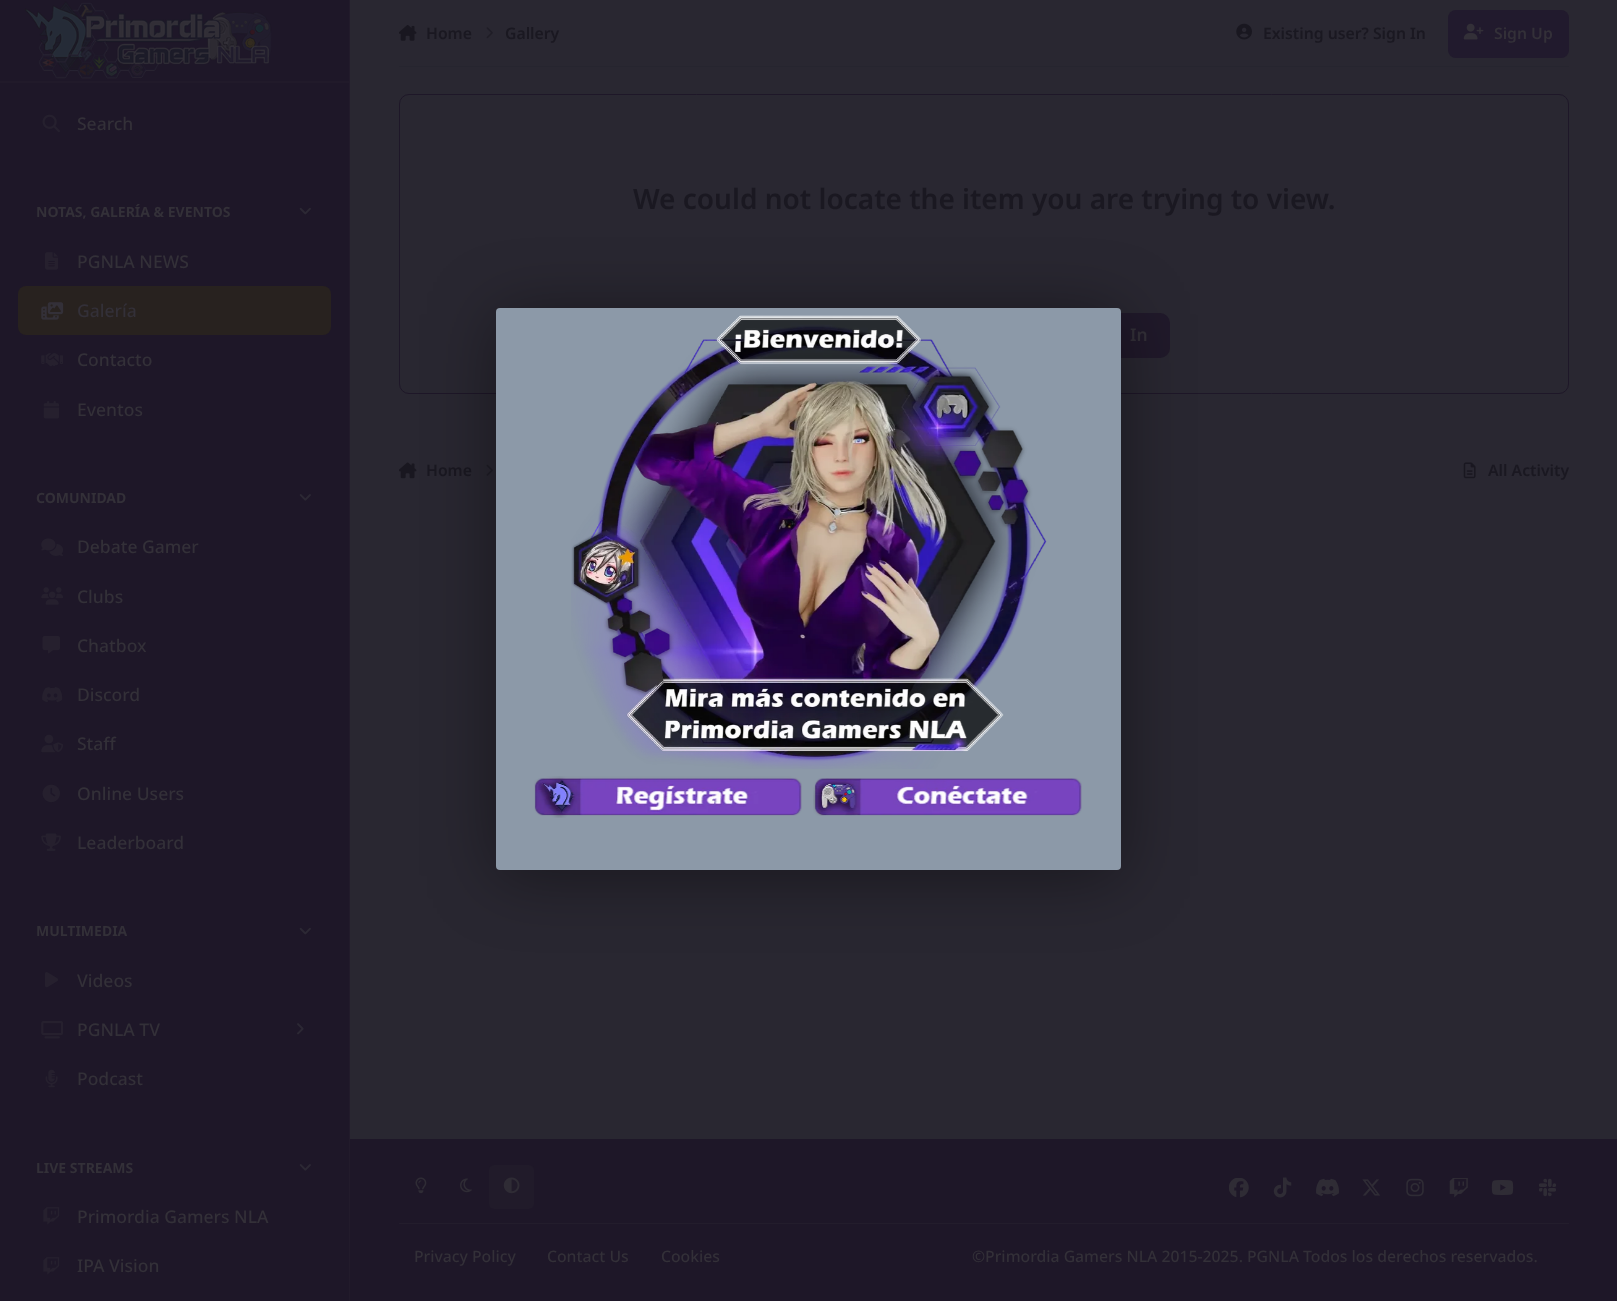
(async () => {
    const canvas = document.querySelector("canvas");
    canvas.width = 1617;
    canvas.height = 1301;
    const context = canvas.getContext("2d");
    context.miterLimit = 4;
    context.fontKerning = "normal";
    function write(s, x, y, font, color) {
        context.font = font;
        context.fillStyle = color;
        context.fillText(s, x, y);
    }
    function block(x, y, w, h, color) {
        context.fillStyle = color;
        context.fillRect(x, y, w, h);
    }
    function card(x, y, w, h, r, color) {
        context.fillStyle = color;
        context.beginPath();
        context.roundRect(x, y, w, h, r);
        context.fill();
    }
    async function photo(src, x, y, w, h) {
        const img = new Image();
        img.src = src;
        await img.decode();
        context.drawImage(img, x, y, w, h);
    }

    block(0, 0, 1617, 1301, "rgb(41, 39, 49)");
    block(0, 0, 349, 1301, "rgb(30, 23, 40)");
    block(349, 0, 1, 1301, "rgb(34, 27, 43)");
    context.fillStyle = "rgb(33, 26, 42)";
    context.beginPath();
    context.moveTo(0, 81);
    context.lineTo(0, 83);
    context.lineTo(349, 83);
    context.lineTo(349, 1);
    context.lineTo(349, 81);
    context.closePath();
    context.fill();
    await photo("media/1.png", 25, 1, 247, 78);
    await photo("media/2.png", 42, 114, 18, 19);
    write("Search", 77, 130, "500 17.5px Noto Sans", "rgb(51, 48, 56)");
    write("NOTAS, GALERÍA & EVENTOS", 36, 217, "bold 14px Noto Sans", "rgb(51, 48, 56)");
    await photo("media/3.png", 299, 207, 12, 8);
    await photo("media/4.png", 45, 252, 14, 18);
    write("PGNLA NEWS", 77, 268, "500 17.5px Noto Sans", "rgb(51, 48, 56)");
    card(18, 286, 313, 49, 8, "rgb(40, 34, 31)");
    await photo("media/5.png", 41, 302, 23, 18);
    write("Galería", 77, 317, "500 17.5px Noto Sans", "rgb(51, 48, 56)");
    await photo("media/6.png", 41, 353, 23, 14);
    write("Contacto", 77, 366, "500 17.5px Noto Sans", "rgb(51, 48, 56)");
    await photo("media/7.png", 43, 401, 17, 18);
    write("Eventos", 77, 416, "500 17.5px Noto Sans", "rgb(51, 48, 56)");
    write("COMUNIDAD", 36, 503, "bold 14px Noto Sans", "rgb(51, 48, 56)");
    await photo("media/8.png", 299, 494, 12, 7);
    await photo("media/9.png", 41, 538, 23, 18);
    write("Debate Gamer", 77, 553, "500 17.5px Noto Sans", "rgb(51, 48, 56)");
    await photo("media/10.png", 41, 587, 22, 18);
    write("Clubs", 77, 603, "500 17.5px Noto Sans", "rgb(51, 48, 56)");
    await photo("media/11.png", 42, 635, 18, 19);
    write("Chatbox", 77, 652, "500 17.5px Noto Sans", "rgb(51, 48, 56)");
    await photo("media/12.png", 42, 687, 21, 16);
    write("Discord", 77, 701, "500 17.5px Noto Sans", "rgb(51, 48, 56)");
    await photo("media/13.png", 41, 734, 23, 19);
    write("Staff", 77, 750, "500 17.5px Noto Sans", "rgb(51, 48, 56)");
    await photo("media/14.png", 42, 784, 18, 19);
    write("Online Users", 77, 800, "500 17.5px Noto Sans", "rgb(51, 48, 56)");
    await photo("media/15.png", 41, 833, 20, 18);
    write("Leaderboard", 77, 849, "500 17.5px Noto Sans", "rgb(51, 48, 56)");
    write("MULTIMEDIA", 36, 936, "bold 14px Noto Sans", "rgb(51, 48, 56)");
    await photo("media/3.png", 299, 927, 12, 8);
    await photo("media/16.png", 45, 972, 14, 16);
    write("Videos", 77, 987, "500 17.5px Noto Sans", "rgb(51, 48, 56)");
    await photo("media/17.png", 41, 1020, 23, 19);
    write("PGNLA TV", 77, 1036, "500 17.5px Noto Sans", "rgb(51, 48, 56)");
    await photo("media/18.png", 297, 1023, 7, 12);
    await photo("media/19.png", 45, 1069, 13, 19);
    write("Podcast", 77, 1085, "500 17.5px Noto Sans", "rgb(51, 48, 56)");
    write("LIVE STREAMS", 36, 1173, "bold 14px Noto Sans", "rgb(51, 48, 56)");
    await photo("media/8.png", 299, 1164, 12, 7);
    await photo("media/20.png", 43, 1207, 17, 18);
    write("Primordia Gamers NLA", 77, 1223, "500 17.5px Noto Sans", "rgb(51, 48, 56)");
    await photo("media/20.png", 43, 1257, 17, 18);
    write("IPA Vision", 77, 1272, "500 17.5px Noto Sans", "rgb(51, 48, 56)");
    block(399, 66, 1170, 1, "rgb(38, 37, 47)");
    await photo("media/21.png", 399, 25, 18, 16);
    write("Home", 426, 39, "600 15.75px Noto Sans", "rgb(26, 24, 33)");
    await photo("media/22.png", 486, 27, 7, 12);
    write("Gallery", 505, 39, "600 15.75px Noto Sans", "rgb(26, 24, 33)");
    await photo("media/23.png", 1236, 23, 16, 17);
    write("Existing user? Sign In", 1263, 39, "600 15.75px Noto Sans", "rgb(26, 24, 33)");
    card(1448, 10, 121, 48, 8, "rgb(33, 26, 45)");
    await photo("media/24.png", 1463, 23, 21, 17);
    write("Sign Up", 1494, 39, "600 15.75px Noto Sans", "rgb(51, 48, 56)");
    context.beginPath();
    context.roundRect(399.5, 94.5, 1169, 299, 9.5);
    context.strokeStyle = "rgb(30, 23, 40)";
    context.stroke();
    write("We could not locate the item you are trying to view.", 633, 209, "600 28px Noto Sans", "rgb(26, 24, 33)");
    card(944, 313, 226, 45, 10, "rgb(32, 25, 42)");
    write("In", 1130, 341, "600 17.5px Noto Sans", "rgb(51, 48, 56)");
    await photo("media/25.png", 399, 462, 18, 17);
    write("Home", 426, 476, "600 15.75px Noto Sans", "rgb(26, 24, 33)");
    await photo("media/26.png", 486, 464, 7, 12);
    await photo("media/27.png", 1463, 462, 13, 17);
    write("All Activity", 1488, 476, "600 15.75px Noto Sans", "rgb(26, 24, 33)");
    block(350, 1139, 1267, 162, "rgb(30, 23, 40)");
    await photo("media/28.png", 415, 1177, 12, 17);
    await photo("media/29.png", 460, 1178, 12, 15);
    card(489, 1165, 45, 44, 5, "rgb(33, 27, 42)");
    await photo("media/30.png", 503, 1177, 17, 17);
    await photo("media/31.png", 1229, 1178, 20, 20);
    await photo("media/32.png", 1273, 1177, 19, 21);
    await photo("media/33.png", 1316, 1178, 23, 19);
    await photo("media/34.png", 1362, 1179, 19, 17);
    await photo("media/35.png", 1406, 1178, 18, 19);
    await photo("media/36.png", 1449, 1178, 19, 20);
    await photo("media/37.png", 1491, 1180, 23, 15);
    await photo("media/38.png", 1539, 1178, 17, 19);
    block(399, 1223, 1170, 1, "rgb(35, 29, 44)");
    write("Privacy Policy", 414, 1262, "500 15.75px Noto Sans", "rgb(51, 48, 56)");
    write("Contact Us", 547, 1262, "500 15.75px Noto Sans", "rgb(51, 48, 56)");
    write("Cookies", 661, 1262, "500 15.75px Noto Sans", "rgb(51, 48, 56)");
    write("©Primordia Gamers NLA 2015-2025. PGNLA Todos los derechos reservados.", 972, 1262, "500 15.75px Noto Sans", "rgb(51, 48, 56)");
    context.fillStyle = "rgba(0, 0, 0, 0.4)";
    context.filter = "blur(34.5px)";
    context.beginPath();
    context.roundRect(496, 314, 625, 562, 4);
    context.fill();
    context.filter = "none";
    card(496, 308, 625, 562, 4, "rgb(140, 153, 168)");
    await photo("media/39.png", 571, 315, 476, 454);
    await photo("media/40.png", 534, 776, 268, 42);
    await photo("media/41.png", 813, 778, 269, 38);
})();
